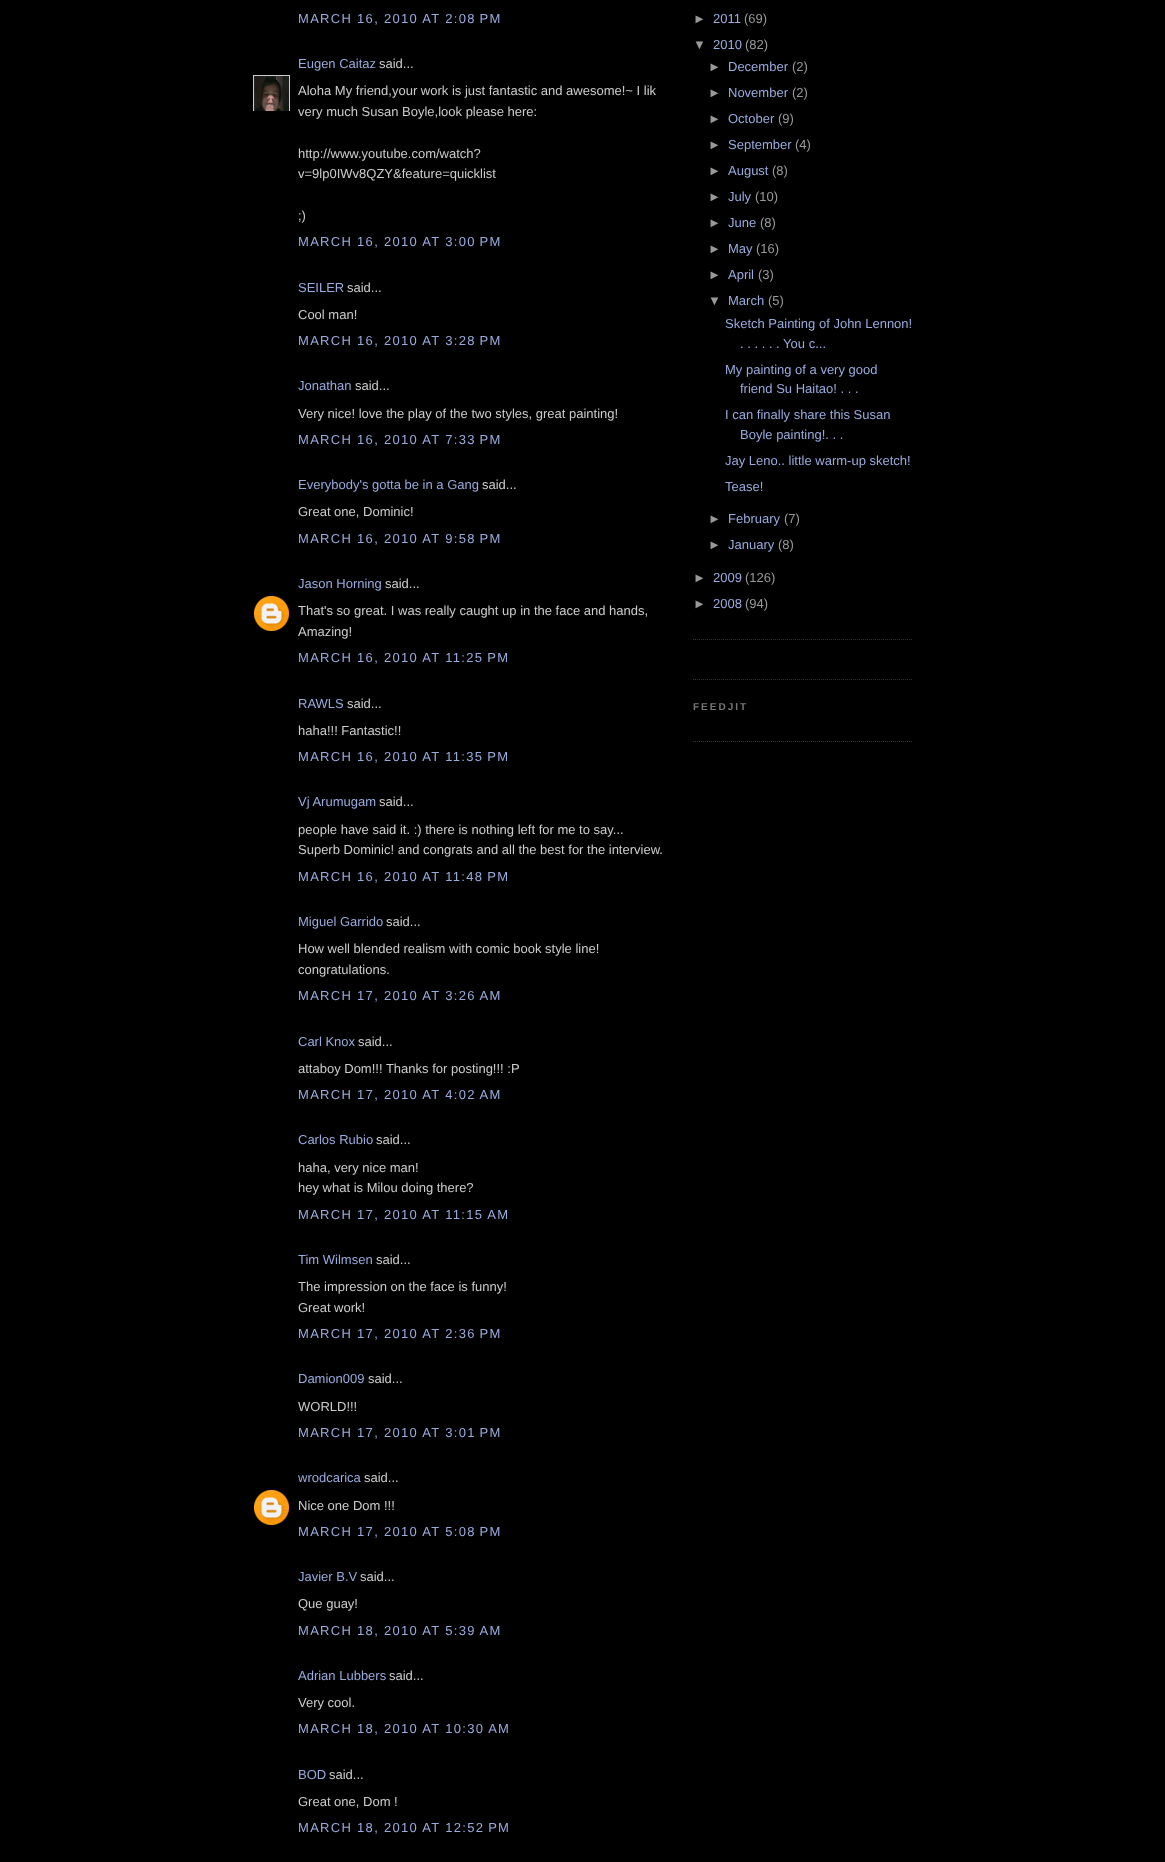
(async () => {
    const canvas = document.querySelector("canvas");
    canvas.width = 1165;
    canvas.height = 1862;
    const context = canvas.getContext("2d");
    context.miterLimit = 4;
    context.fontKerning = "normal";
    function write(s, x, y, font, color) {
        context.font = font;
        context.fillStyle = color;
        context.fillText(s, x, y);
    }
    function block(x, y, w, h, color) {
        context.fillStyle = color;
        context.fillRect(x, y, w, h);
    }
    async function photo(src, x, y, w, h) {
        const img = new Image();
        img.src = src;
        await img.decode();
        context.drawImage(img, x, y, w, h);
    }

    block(0, 0, 1165, 1862, "rgb(0, 0, 0)");
    context.letterSpacing = "1.3px";
    write("MARCH 16, 2010 AT 2:08 PM", 298, 23, "13px Liberation Sans", "rgb(153, 170, 221)");
    context.letterSpacing = "0px";
    write("Eugen Caitaz", 298, 68, "13px Liberation Sans", "rgb(153, 170, 221)");
    write("said...", 379, 68, "13px Liberation Sans", "rgb(204, 204, 204)");
    context.save();
    context.beginPath();
    context.rect(253, 75, 37, 36);
    context.clip();
    context.strokeStyle = "rgb(204, 204, 204)";
    context.strokeRect(253.5, 75.5, 36, 36);
    context.restore();
    await photo("media/1.png", 254, 76, 35, 35);
    write("Aloha My friend,your work is just fantastic and awesome!~ I lik", 298, 95, "13px Liberation Sans", "rgb(204, 204, 204)");
    write("very much Susan Boyle,look please here:", 298, 116, "13px Liberation Sans", "rgb(204, 204, 204)");
    write("http://www.youtube.com/watch?", 298, 158, "13px Liberation Sans", "rgb(204, 204, 204)");
    write("v=9lp0IWv8QZY&feature=quicklist", 298, 178, "13px Liberation Sans", "rgb(204, 204, 204)");
    write(";)", 298, 220, "13px Liberation Sans", "rgb(204, 204, 204)");
    context.letterSpacing = "1.3px";
    write("MARCH 16, 2010 AT 3:00 PM", 298, 246, "13px Liberation Sans", "rgb(153, 170, 221)");
    context.letterSpacing = "0px";
    write("SEILER", 298, 292, "13px Liberation Sans", "rgb(153, 170, 221)");
    write("said...", 347, 292, "13px Liberation Sans", "rgb(204, 204, 204)");
    write("Cool man!", 298, 319, "13px Liberation Sans", "rgb(204, 204, 204)");
    context.letterSpacing = "1.3px";
    write("MARCH 16, 2010 AT 3:28 PM", 298, 345, "13px Liberation Sans", "rgb(153, 170, 221)");
    context.letterSpacing = "0px";
    write("Jonathan", 298, 390, "13px Liberation Sans", "rgb(153, 170, 221)");
    write("said...", 355, 390, "13px Liberation Sans", "rgb(204, 204, 204)");
    write("Very nice! love the play of the two styles, great painting!", 298, 418, "13px Liberation Sans", "rgb(204, 204, 204)");
    context.letterSpacing = "1.3px";
    write("MARCH 16, 2010 AT 7:33 PM", 298, 444, "13px Liberation Sans", "rgb(153, 170, 221)");
    context.letterSpacing = "0px";
    write("Everybody's gotta be in a Gang", 298, 489, "13px Liberation Sans", "rgb(153, 170, 221)");
    write("said...", 482, 489, "13px Liberation Sans", "rgb(204, 204, 204)");
    write("Great one, Dominic!", 298, 516, "13px Liberation Sans", "rgb(204, 204, 204)");
    context.letterSpacing = "1.3px";
    write("MARCH 16, 2010 AT 9:58 PM", 298, 543, "13px Liberation Sans", "rgb(153, 170, 221)");
    context.letterSpacing = "0px";
    write("Jason Horning", 298, 588, "13px Liberation Sans", "rgb(153, 170, 221)");
    write("said...", 385, 588, "13px Liberation Sans", "rgb(204, 204, 204)");
    await photo("media/2.png", 254, 596, 35, 35);
    write("That's so great. I was really caught up in the face and hands,", 298, 615, "13px Liberation Sans", "rgb(204, 204, 204)");
    write("Amazing!", 298, 636, "13px Liberation Sans", "rgb(204, 204, 204)");
    context.letterSpacing = "1.3px";
    write("MARCH 16, 2010 AT 11:25 PM", 298, 662, "13px Liberation Sans", "rgb(153, 170, 221)");
    context.letterSpacing = "0px";
    write("RAWLS", 298, 708, "13px Liberation Sans", "rgb(153, 170, 221)");
    write("said...", 347, 708, "13px Liberation Sans", "rgb(204, 204, 204)");
    write("haha!!! Fantastic!!", 298, 735, "13px Liberation Sans", "rgb(204, 204, 204)");
    context.letterSpacing = "1.3px";
    write("MARCH 16, 2010 AT 11:35 PM", 298, 761, "13px Liberation Sans", "rgb(153, 170, 221)");
    context.letterSpacing = "0px";
    write("Vj Arumugam", 298, 806, "13px Liberation Sans", "rgb(153, 170, 221)");
    write("said...", 379, 806, "13px Liberation Sans", "rgb(204, 204, 204)");
    write("people have said it. :) there is nothing left for me to say...", 298, 834, "13px Liberation Sans", "rgb(204, 204, 204)");
    write("Superb Dominic! and congrats and all the best for the interview.", 298, 854, "13px Liberation Sans", "rgb(204, 204, 204)");
    context.letterSpacing = "1.3px";
    write("MARCH 16, 2010 AT 11:48 PM", 298, 881, "13px Liberation Sans", "rgb(153, 170, 221)");
    context.letterSpacing = "0px";
    write("Miguel Garrido", 298, 926, "13px Liberation Sans", "rgb(153, 170, 221)");
    write("said...", 386, 926, "13px Liberation Sans", "rgb(204, 204, 204)");
    write("How well blended realism with comic book style line!", 298, 953, "13px Liberation Sans", "rgb(204, 204, 204)");
    write("congratulations.", 298, 974, "13px Liberation Sans", "rgb(204, 204, 204)");
    context.letterSpacing = "1.3px";
    write("MARCH 17, 2010 AT 3:26 AM", 298, 1000, "13px Liberation Sans", "rgb(153, 170, 221)");
    context.letterSpacing = "0px";
    write("Carl Knox", 298, 1046, "13px Liberation Sans", "rgb(153, 170, 221)");
    write("said...", 358, 1046, "13px Liberation Sans", "rgb(204, 204, 204)");
    write("attaboy Dom!!! Thanks for posting!!! :P", 298, 1073, "13px Liberation Sans", "rgb(204, 204, 204)");
    context.letterSpacing = "1.3px";
    write("MARCH 17, 2010 AT 4:02 AM", 298, 1099, "13px Liberation Sans", "rgb(153, 170, 221)");
    context.letterSpacing = "0px";
    write("Carlos Rubio", 298, 1144, "13px Liberation Sans", "rgb(153, 170, 221)");
    write("said...", 376, 1144, "13px Liberation Sans", "rgb(204, 204, 204)");
    write("haha, very nice man!", 298, 1172, "13px Liberation Sans", "rgb(204, 204, 204)");
    write("hey what is Milou doing there?", 298, 1192, "13px Liberation Sans", "rgb(204, 204, 204)");
    context.letterSpacing = "1.3px";
    write("MARCH 17, 2010 AT 11:15 AM", 298, 1219, "13px Liberation Sans", "rgb(153, 170, 221)");
    context.letterSpacing = "0px";
    write("Tim Wilmsen", 298, 1264, "13px Liberation Sans", "rgb(153, 170, 221)");
    write("said...", 376, 1264, "13px Liberation Sans", "rgb(204, 204, 204)");
    write("The impression on the face is funny!", 298, 1291, "13px Liberation Sans", "rgb(204, 204, 204)");
    write("Great work!", 298, 1312, "13px Liberation Sans", "rgb(204, 204, 204)");
    context.letterSpacing = "1.3px";
    write("MARCH 17, 2010 AT 2:36 PM", 298, 1338, "13px Liberation Sans", "rgb(153, 170, 221)");
    context.letterSpacing = "0px";
    write("Damion009", 298, 1383, "13px Liberation Sans", "rgb(153, 170, 221)");
    write("said...", 368, 1383, "13px Liberation Sans", "rgb(204, 204, 204)");
    write("WORLD!!!", 298, 1411, "13px Liberation Sans", "rgb(204, 204, 204)");
    context.letterSpacing = "1.3px";
    write("MARCH 17, 2010 AT 3:01 PM", 298, 1437, "13px Liberation Sans", "rgb(153, 170, 221)");
    context.letterSpacing = "0px";
    write("wrodcarica", 298, 1482, "13px Liberation Sans", "rgb(153, 170, 221)");
    write("said...", 364, 1482, "13px Liberation Sans", "rgb(204, 204, 204)");
    await photo("media/2.png", 254, 1490, 35, 35);
    write("Nice one Dom !!!", 298, 1510, "13px Liberation Sans", "rgb(204, 204, 204)");
    context.letterSpacing = "1.3px";
    write("MARCH 17, 2010 AT 5:08 PM", 298, 1536, "13px Liberation Sans", "rgb(153, 170, 221)");
    context.letterSpacing = "0px";
    write("Javier B.V", 298, 1581, "13px Liberation Sans", "rgb(153, 170, 221)");
    write("said...", 360, 1581, "13px Liberation Sans", "rgb(204, 204, 204)");
    write("Que guay!", 298, 1608, "13px Liberation Sans", "rgb(204, 204, 204)");
    context.letterSpacing = "1.3px";
    write("MARCH 18, 2010 AT 5:39 AM", 298, 1635, "13px Liberation Sans", "rgb(153, 170, 221)");
    context.letterSpacing = "0px";
    write("Adrian Lubbers", 298, 1680, "13px Liberation Sans", "rgb(153, 170, 221)");
    write("said...", 389, 1680, "13px Liberation Sans", "rgb(204, 204, 204)");
    write("Very cool.", 298, 1707, "13px Liberation Sans", "rgb(204, 204, 204)");
    context.letterSpacing = "1.3px";
    write("MARCH 18, 2010 AT 10:30 AM", 298, 1733, "13px Liberation Sans", "rgb(153, 170, 221)");
    context.letterSpacing = "0px";
    write("BOD", 298, 1779, "13px Liberation Sans", "rgb(153, 170, 221)");
    write("said...", 329, 1779, "13px Liberation Sans", "rgb(204, 204, 204)");
    write("Great one, Dom !", 298, 1806, "13px Liberation Sans", "rgb(204, 204, 204)");
    context.letterSpacing = "1.3px";
    write("MARCH 18, 2010 AT 12:52 PM", 298, 1832, "13px Liberation Sans", "rgb(153, 170, 221)");
    context.beginPath();
    context.moveTo(693, 639.5);
    context.lineTo(913, 639.5);
    context.strokeStyle = "rgb(51, 51, 51)";
    context.setLineDash([1, 1]);
    context.stroke();
    context.letterSpacing = "0px";
    write("►", 693, 23, "13px Liberation Sans", "rgb(153, 153, 153)");
    write("2011", 713, 23, "13px Liberation Sans", "rgb(153, 170, 221)");
    write("(69)", 744, 23, "13px Liberation Sans", "rgb(153, 153, 153)");
    write("▼", 693, 49, "13px Liberation Sans", "rgb(153, 153, 153)");
    write("2010", 713, 49, "13px Liberation Sans", "rgb(153, 170, 221)");
    write("(82)", 745, 49, "13px Liberation Sans", "rgb(153, 153, 153)");
    write("►", 708, 71, "13px Liberation Sans", "rgb(153, 153, 153)");
    write("December", 728, 71, "13px Liberation Sans", "rgb(153, 170, 221)");
    write("(2)", 792, 71, "13px Liberation Sans", "rgb(153, 153, 153)");
    write("►", 708, 97, "13px Liberation Sans", "rgb(153, 153, 153)");
    write("November", 728, 97, "13px Liberation Sans", "rgb(153, 170, 221)");
    write("(2)", 792, 97, "13px Liberation Sans", "rgb(153, 153, 153)");
    write("►", 708, 123, "13px Liberation Sans", "rgb(153, 153, 153)");
    write("October", 728, 123, "13px Liberation Sans", "rgb(153, 170, 221)");
    write("(9)", 778, 123, "13px Liberation Sans", "rgb(153, 153, 153)");
    write("►", 708, 149, "13px Liberation Sans", "rgb(153, 153, 153)");
    write("September", 728, 149, "13px Liberation Sans", "rgb(153, 170, 221)");
    write("(4)", 795, 149, "13px Liberation Sans", "rgb(153, 153, 153)");
    write("►", 708, 175, "13px Liberation Sans", "rgb(153, 153, 153)");
    write("August", 728, 175, "13px Liberation Sans", "rgb(153, 170, 221)");
    write("(8)", 772, 175, "13px Liberation Sans", "rgb(153, 153, 153)");
    write("►", 708, 201, "13px Liberation Sans", "rgb(153, 153, 153)");
    write("July", 728, 201, "13px Liberation Sans", "rgb(153, 170, 221)");
    write("(10)", 755, 201, "13px Liberation Sans", "rgb(153, 153, 153)");
    write("►", 708, 227, "13px Liberation Sans", "rgb(153, 153, 153)");
    write("June", 728, 227, "13px Liberation Sans", "rgb(153, 170, 221)");
    write("(8)", 760, 227, "13px Liberation Sans", "rgb(153, 153, 153)");
    write("►", 708, 253, "13px Liberation Sans", "rgb(153, 153, 153)");
    write("May", 728, 253, "13px Liberation Sans", "rgb(153, 170, 221)");
    write("(16)", 756, 253, "13px Liberation Sans", "rgb(153, 153, 153)");
    write("►", 708, 279, "13px Liberation Sans", "rgb(153, 153, 153)");
    write("April", 728, 279, "13px Liberation Sans", "rgb(153, 170, 221)");
    write("(3)", 758, 279, "13px Liberation Sans", "rgb(153, 153, 153)");
    write("▼", 708, 305, "13px Liberation Sans", "rgb(153, 153, 153)");
    write("March", 728, 305, "13px Liberation Sans", "rgb(153, 170, 221)");
    write("(5)", 768, 305, "13px Liberation Sans", "rgb(153, 153, 153)");
    write("Sketch Painting of John Lennon!", 725, 328, "13px Liberation Sans", "rgb(153, 170, 221)");
    write(". . . . . . You c...", 740, 348, "13px Liberation Sans", "rgb(153, 170, 221)");
    write("My painting of a very good", 725, 374, "13px Liberation Sans", "rgb(153, 170, 221)");
    write("friend Su Haitao! . . .", 740, 393, "13px Liberation Sans", "rgb(153, 170, 221)");
    write("I can finally share this Susan", 725, 419, "13px Liberation Sans", "rgb(153, 170, 221)");
    write("Boyle painting!. . .", 740, 439, "13px Liberation Sans", "rgb(153, 170, 221)");
    write("Jay Leno.. little warm-up sketch!", 725, 465, "13px Liberation Sans", "rgb(153, 170, 221)");
    write("Tease!", 725, 491, "13px Liberation Sans", "rgb(153, 170, 221)");
    write("►", 708, 523, "13px Liberation Sans", "rgb(153, 153, 153)");
    write("February", 728, 523, "13px Liberation Sans", "rgb(153, 170, 221)");
    write("(7)", 784, 523, "13px Liberation Sans", "rgb(153, 153, 153)");
    write("►", 708, 549, "13px Liberation Sans", "rgb(153, 153, 153)");
    write("January", 728, 549, "13px Liberation Sans", "rgb(153, 170, 221)");
    write("(8)", 778, 549, "13px Liberation Sans", "rgb(153, 153, 153)");
    write("►", 693, 582, "13px Liberation Sans", "rgb(153, 153, 153)");
    write("2009", 713, 582, "13px Liberation Sans", "rgb(153, 170, 221)");
    write("(126)", 745, 582, "13px Liberation Sans", "rgb(153, 153, 153)");
    write("►", 693, 608, "13px Liberation Sans", "rgb(153, 153, 153)");
    write("2008", 713, 608, "13px Liberation Sans", "rgb(153, 170, 221)");
    write("(94)", 745, 608, "13px Liberation Sans", "rgb(153, 153, 153)");
    context.beginPath();
    context.moveTo(693, 679.5);
    context.lineTo(913, 679.5);
    context.stroke();
    context.beginPath();
    context.moveTo(693, 741.5);
    context.lineTo(913, 741.5);
    context.stroke();
    context.letterSpacing = "2px";
    write("FEEDJIT", 693, 710, "bold 10px Liberation Sans", "rgb(119, 119, 119)");
})();
